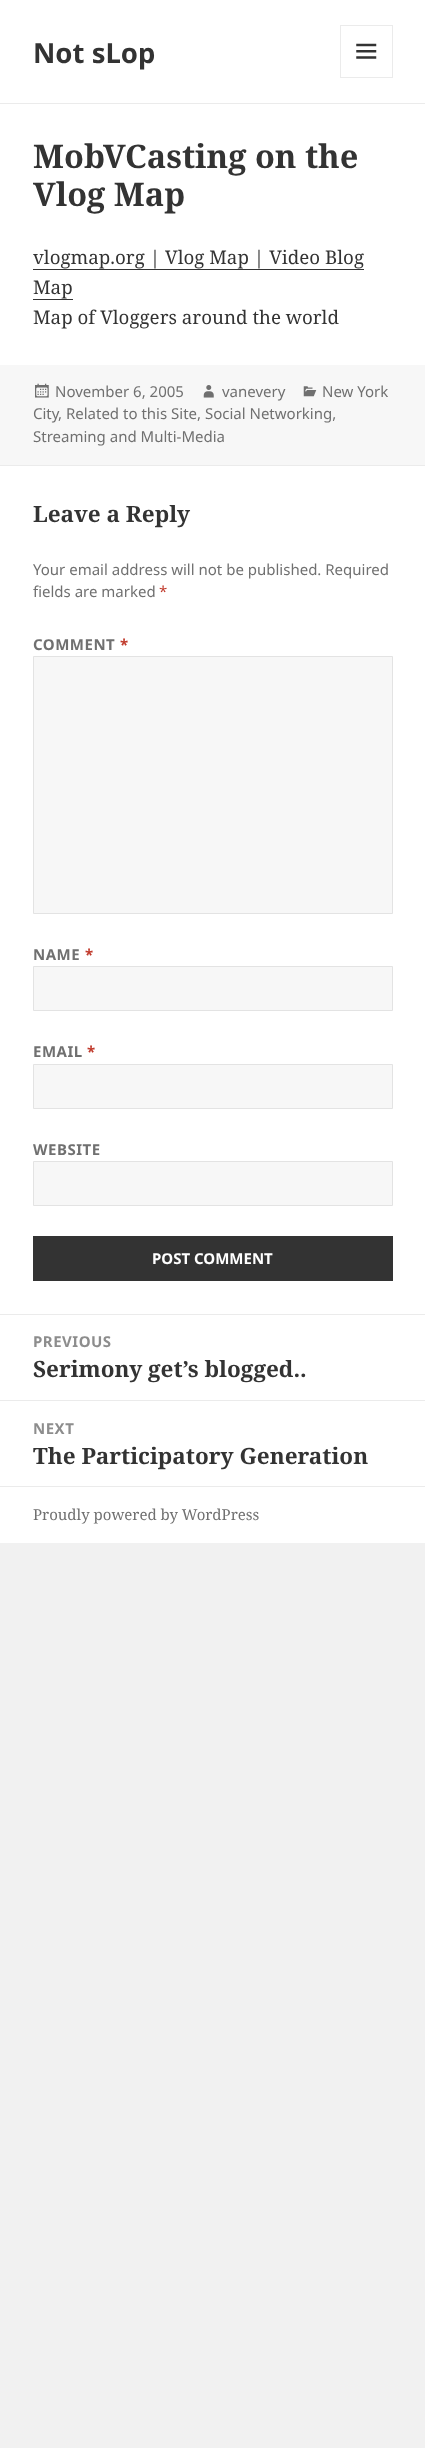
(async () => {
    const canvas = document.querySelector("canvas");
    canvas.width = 425;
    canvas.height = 2448;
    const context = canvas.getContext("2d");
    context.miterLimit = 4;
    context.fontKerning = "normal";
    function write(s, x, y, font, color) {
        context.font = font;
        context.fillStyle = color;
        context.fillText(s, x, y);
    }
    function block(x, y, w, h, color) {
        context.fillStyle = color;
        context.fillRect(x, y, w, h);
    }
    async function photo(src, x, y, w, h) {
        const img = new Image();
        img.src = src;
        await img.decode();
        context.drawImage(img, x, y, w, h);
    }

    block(0, 0, 425, 2448, "rgb(241, 241, 241)");
    block(0, 0, 425, 103, "rgb(255, 255, 255)");
    block(0, 103, 425, 1, "rgb(235, 235, 235)");
    write("Not sLop", 33, 63, "bold 27.5px Noto Sans", "rgb(51, 51, 51)");
    context.strokeStyle = "rgb(235, 235, 235)";
    context.strokeRect(340.5, 25.5, 52, 52);
    await photo("media/1.png", 356, 43, 21, 16);
    block(0, 104, 425, 261, "rgb(255, 255, 255)");
    write("MobVCasting on the", 33, 168, "bold 32.5px Noto Serif", "rgb(51, 51, 51)");
    write("Vlog Map", 33, 206, "bold 32.5px Noto Serif", "rgb(51, 51, 51)");
    write("vlogmap.org | Vlog Map | Video Blog", 33, 264, "18.75px Noto Serif", "rgb(51, 51, 51)");
    block(33, 269, 331, 1, "rgb(51, 51, 51)");
    write("Map", 33, 294, "18.75px Noto Serif", "rgb(51, 51, 51)");
    block(33, 299, 40, 1, "rgb(51, 51, 51)");
    write("Map of Vloggers around the world", 33, 324, "18.75px Noto Serif", "rgb(51, 51, 51)");
    block(0, 365, 425, 100, "rgb(247, 247, 247)");
    await photo("media/2.png", 303, 386, 14, 11);
    write("New York", 322, 397, "15px Noto Sans", "rgb(112, 112, 112)");
    write("City", 33, 419, "15px Noto Sans", "rgb(112, 112, 112)");
    write(", Related to this Site, Social Networking,", 58, 419, "15px Noto Sans", "rgb(112, 112, 112)");
    write("Streaming and Multi-Media", 33, 442, "15px Noto Sans", "rgb(112, 112, 112)");
    await photo("media/3.png", 35, 383, 14, 15);
    write("November 6, 2005", 55, 397, "15px Noto Sans", "rgb(112, 112, 112)");
    await photo("media/4.png", 203, 385, 11, 13);
    write("vanevery", 222, 397, "15px Noto Sans", "rgb(112, 112, 112)");
    block(0, 466, 425, 848, "rgb(255, 255, 255)");
    block(0, 465, 425, 1, "rgb(235, 235, 235)");
    write("Leave a Reply", 33, 522, "bold 22.5px Noto Serif", "rgb(51, 51, 51)");
    write("Your email address will not be published. Required", 33, 575, "15px Noto Sans", "rgb(112, 112, 112)");
    write("fields are marked", 33, 597, "15px Noto Sans", "rgb(112, 112, 112)");
    write("*", 159, 597, "15px Noto Sans", "rgb(192, 57, 43)");
    context.letterSpacing = "0.5px";
    write("COMMENT", 33, 650, "bold 15px Noto Sans", "rgb(112, 112, 112)");
    write("*", 120, 650, "bold 15px Noto Sans", "rgb(192, 57, 43)");
    context.fillStyle = "rgb(247, 247, 247)";
    context.beginPath();
    context.rect(33.5, 656.5, 359, 257);
    context.fill();
    context.strokeStyle = "rgb(227, 227, 227)";
    context.stroke();
    write("NAME", 33, 960, "bold 15px Noto Sans", "rgb(112, 112, 112)");
    write("*", 85, 960, "bold 15px Noto Sans", "rgb(192, 57, 43)");
    context.fillStyle = "rgb(247, 247, 247)";
    context.beginPath();
    context.rect(33.5, 966.5, 359, 44);
    context.fill();
    context.stroke();
    write("EMAIL", 33, 1057, "bold 15px Noto Sans", "rgb(112, 112, 112)");
    write("*", 87, 1057, "bold 15px Noto Sans", "rgb(192, 57, 43)");
    context.fillStyle = "rgb(247, 247, 247)";
    context.beginPath();
    context.rect(33.5, 1064.5, 359, 44);
    context.fill();
    context.stroke();
    write("WEBSITE", 33, 1155, "bold 15px Noto Sans", "rgb(112, 112, 112)");
    context.fillStyle = "rgb(247, 247, 247)";
    context.beginPath();
    context.rect(33.5, 1161.5, 359, 44);
    context.fill();
    context.stroke();
    block(33, 1236, 360, 45, "rgb(51, 51, 51)");
    context.letterSpacing = "0px";
    write("POST COMMENT", 152, 1264, "bold 15px Noto Sans", "rgb(255, 255, 255)");
    block(0, 1315, 425, 171, "rgb(255, 255, 255)");
    block(0, 1314, 425, 1, "rgb(235, 235, 235)");
    context.letterSpacing = "0.5px";
    write("PREVIOUS", 33, 1347, "bold 15px Noto Sans", "rgb(141, 141, 141)");
    context.letterSpacing = "0px";
    write("Serimony get’s blogged..", 33, 1377, "bold 22.5px Noto Serif", "rgb(51, 51, 51)");
    block(0, 1400, 425, 1, "rgb(235, 235, 235)");
    context.letterSpacing = "0.5px";
    write("NEXT", 33, 1434, "bold 15px Noto Sans", "rgb(141, 141, 141)");
    context.letterSpacing = "0px";
    write("The Participatory Generation", 33, 1464, "bold 22.5px Noto Serif", "rgb(51, 51, 51)");
    block(0, 1487, 425, 56, "rgb(255, 255, 255)");
    block(0, 1486, 425, 1, "rgb(235, 235, 235)");
    write("Proudly powered by WordPress", 33, 1520, "15px Noto Serif", "rgb(112, 112, 112)");
})();
